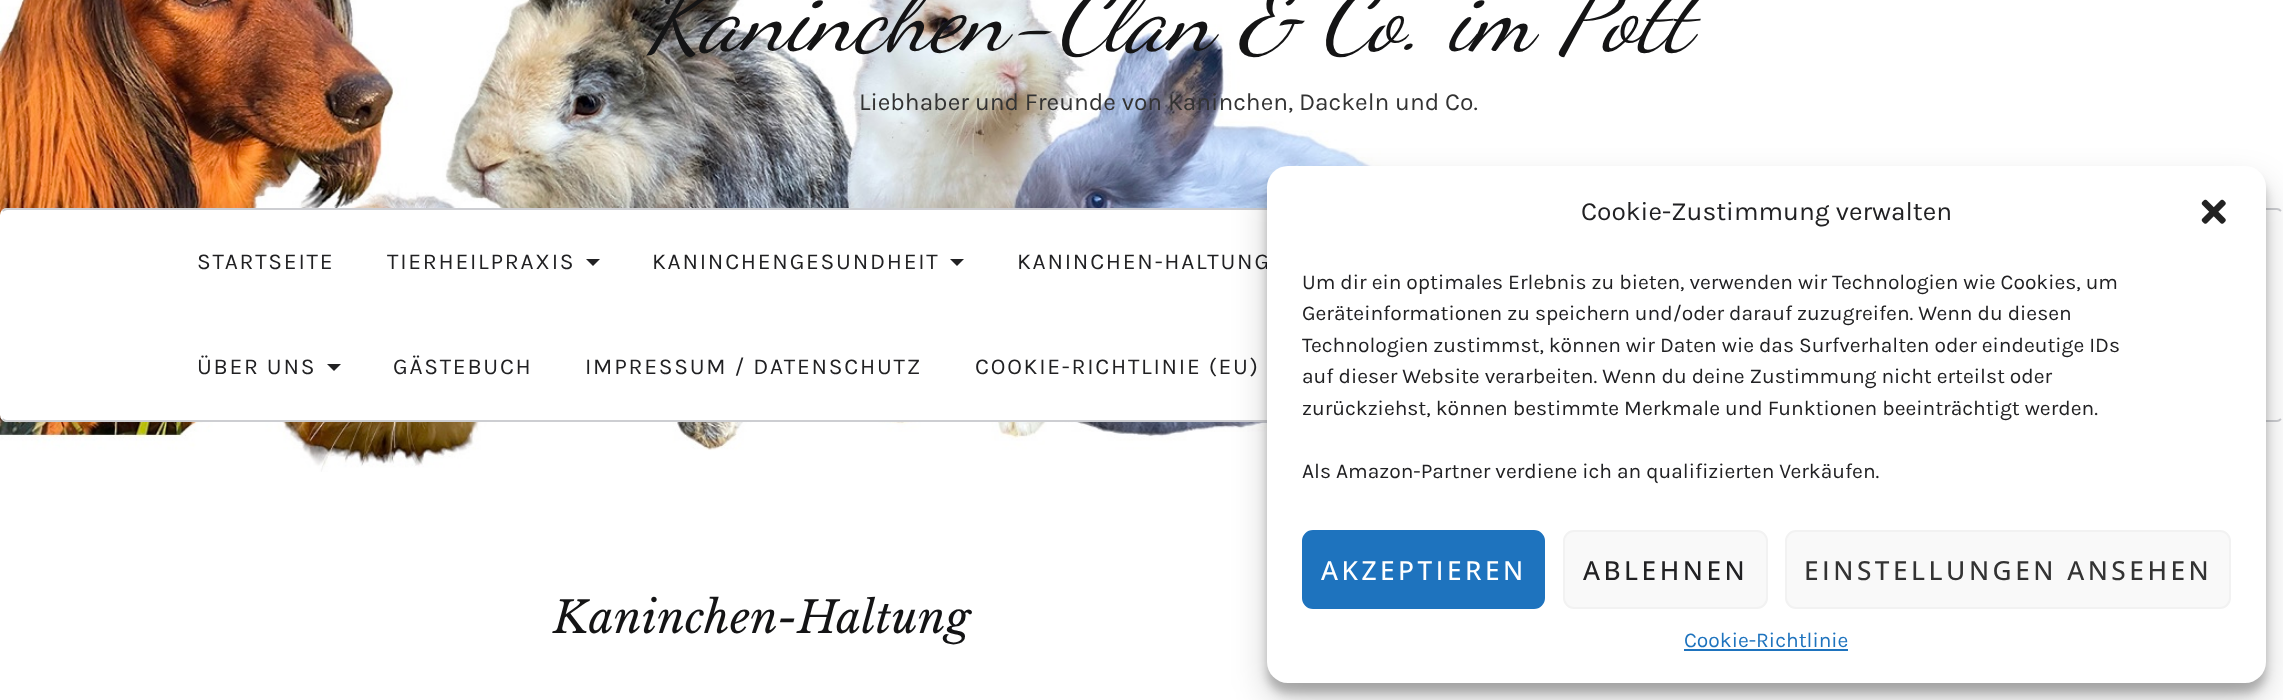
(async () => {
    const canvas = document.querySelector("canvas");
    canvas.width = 2283;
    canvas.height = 700;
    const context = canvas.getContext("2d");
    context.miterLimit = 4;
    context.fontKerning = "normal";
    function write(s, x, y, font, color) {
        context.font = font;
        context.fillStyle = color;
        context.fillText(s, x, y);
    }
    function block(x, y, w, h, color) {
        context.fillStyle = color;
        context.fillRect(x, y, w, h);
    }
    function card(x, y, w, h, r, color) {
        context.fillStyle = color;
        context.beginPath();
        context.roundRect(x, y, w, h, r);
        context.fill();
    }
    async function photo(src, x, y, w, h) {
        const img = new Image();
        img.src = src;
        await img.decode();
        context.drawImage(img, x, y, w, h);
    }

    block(0, 0, 2283, 700, "rgb(255, 255, 255)");
    await photo("media/1.png", 0, 0, 1445, 472);
    context.letterSpacing = "0.35px";
    write("Kaninchen-Clan & Co. im Pott", 645, 49, "italic 94.5px Dancing Script", "rgb(20, 20, 21)");
    context.letterSpacing = "0px";
    write("Liebhaber und Freunde von Kaninchen, Dackeln und Co.", 859, 110, "24.5px Karla", "rgb(51, 51, 51)");
    card(0, 208, 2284, 214, 7, "rgb(255, 255, 255)");
    context.beginPath();
    context.moveTo(2.5, 211);
    context.bezierCurveTo(4, 210, 5.5, 209, 7, 209);
    context.lineTo(2277, 209);
    context.bezierCurveTo(2278.5, 209, 2280, 210, 2281, 211);
    context.strokeStyle = "rgb(205, 206, 210)";
    context.lineWidth = 1.8;
    context.stroke();
    context.beginPath();
    context.moveTo(2281, 419);
    context.bezierCurveTo(2280, 420, 2278.5, 421, 2277, 421);
    context.lineTo(7, 421);
    context.bezierCurveTo(5.5, 421, 4, 420, 2.5, 419);
    context.stroke();
    context.letterSpacing = "1.75px";
    write("STARTSEITE", 197, 269, "22.75px Karla", "rgb(33, 33, 35)");
    write("TIERHEILPRAXIS", 387, 269, "22.75px Karla", "rgb(33, 33, 35)");
    context.beginPath();
    context.moveTo(586, 259);
    context.lineTo(600, 259);
    context.lineTo(593, 266);
    context.closePath();
    context.fill();
    write("KANINCHENGESUNDHEIT", 652, 269, "22.75px Karla", "rgb(33, 33, 35)");
    context.beginPath();
    context.moveTo(950, 259);
    context.lineTo(964, 259);
    context.lineTo(957, 266);
    context.closePath();
    context.fill();
    write("KANINCHEN-HALTUNG", 1017, 269, "22.75px Karla", "rgb(33, 33, 35)");
    write("ÜBER UNS", 197, 374, "22.75px Karla", "rgb(33, 33, 35)");
    context.beginPath();
    context.moveTo(327, 364);
    context.lineTo(341, 364);
    context.lineTo(334, 371);
    context.closePath();
    context.fill();
    write("GÄSTEBUCH", 393, 374, "22.75px Karla", "rgb(33, 33, 35)");
    write("IMPRESSUM / DATENSCHUTZ", 585, 374, "22.75px Karla", "rgb(33, 33, 35)");
    write("COOKIE-RICHTLINIE (EU)", 975, 374, "22.75px Karla", "rgb(33, 33, 35)");
    context.fillStyle = "rgba(0, 0, 0, 0.23)";
    context.filter = "blur(5px)";
    context.beginPath();
    context.roundRect(1267, 177, 999, 516, 21);
    context.fill();
    context.filter = "none";
    context.fillStyle = "rgba(0, 0, 0, 0.19)";
    context.filter = "blur(17.5px)";
    context.beginPath();
    context.roundRect(1267, 184, 999, 516, 21);
    context.fill();
    context.filter = "none";
    card(1267, 166, 999, 517, 21, "rgb(255, 255, 255)");
    context.letterSpacing = "0px";
    write("Cookie-Zustimmung verwalten", 1581, 220, "26.25px Karla", "rgb(33, 33, 35)");
    await photo("media/2.png", 2201, 199, 25, 25);
    write("Um dir ein optimales Erlebnis zu bieten, verwenden wir Technologien wie Cookies, um", 1302, 289, "21px Karla", "rgb(33, 33, 35)");
    write("Geräteinformationen zu speichern und/oder darauf zuzugreifen. Wenn du diesen", 1302, 320, "21px Karla", "rgb(33, 33, 35)");
    write("Technologien zustimmst, können wir Daten wie das Surfverhalten oder eindeutige IDs", 1302, 352, "21px Karla", "rgb(33, 33, 35)");
    write("auf dieser Website verarbeiten. Wenn du deine Zustimmung nicht erteilst oder", 1302, 383, "21px Karla", "rgb(33, 33, 35)");
    write("zurückziehst, können bestimmte Merkmale und Funktionen beeinträchtigt werden.", 1302, 415, "21px Karla", "rgb(33, 33, 35)");
    write("Als Amazon-Partner verdiene ich an qualifizierten Verkäufen.", 1302, 478, "21px Karla", "rgb(33, 33, 35)");
    context.fillStyle = "rgb(30, 115, 190)";
    context.beginPath();
    context.roundRect(1303, 531, 241, 77, 10);
    context.fill();
    context.strokeStyle = "rgb(30, 115, 190)";
    context.lineWidth = 2;
    context.stroke();
    context.letterSpacing = "3.5px";
    write("AKZEPTIEREN", 1321, 580, "500 26.25px Open Sans", "rgb(255, 255, 255)");
    context.fillStyle = "rgb(249, 249, 249)";
    context.beginPath();
    context.roundRect(1564, 531, 203, 77, 10);
    context.fill();
    context.strokeStyle = "rgb(242, 242, 242)";
    context.stroke();
    write("ABLEHNEN", 1583, 580, "500 26.25px Open Sans", "rgb(33, 33, 35)");
    context.fillStyle = "rgb(249, 249, 249)";
    context.beginPath();
    context.roundRect(1786, 531, 444, 77, 10);
    context.fill();
    context.stroke();
    write("EINSTELLUNGEN ANSEHEN", 1804, 580, "500 26.25px Open Sans", "rgb(51, 51, 51)");
    context.letterSpacing = "0px";
    write("Cookie-Richtlinie", 1684, 647, "21px Karla", "rgb(30, 115, 190)");
    block(1684, 649, 164, 2, "rgb(30, 115, 190)");
    context.letterSpacing = "0.35px";
    write("Kaninchen-Haltung", 553, 633, "italic 43.75px Libre Baskerville", "rgb(20, 20, 21)");
})();
